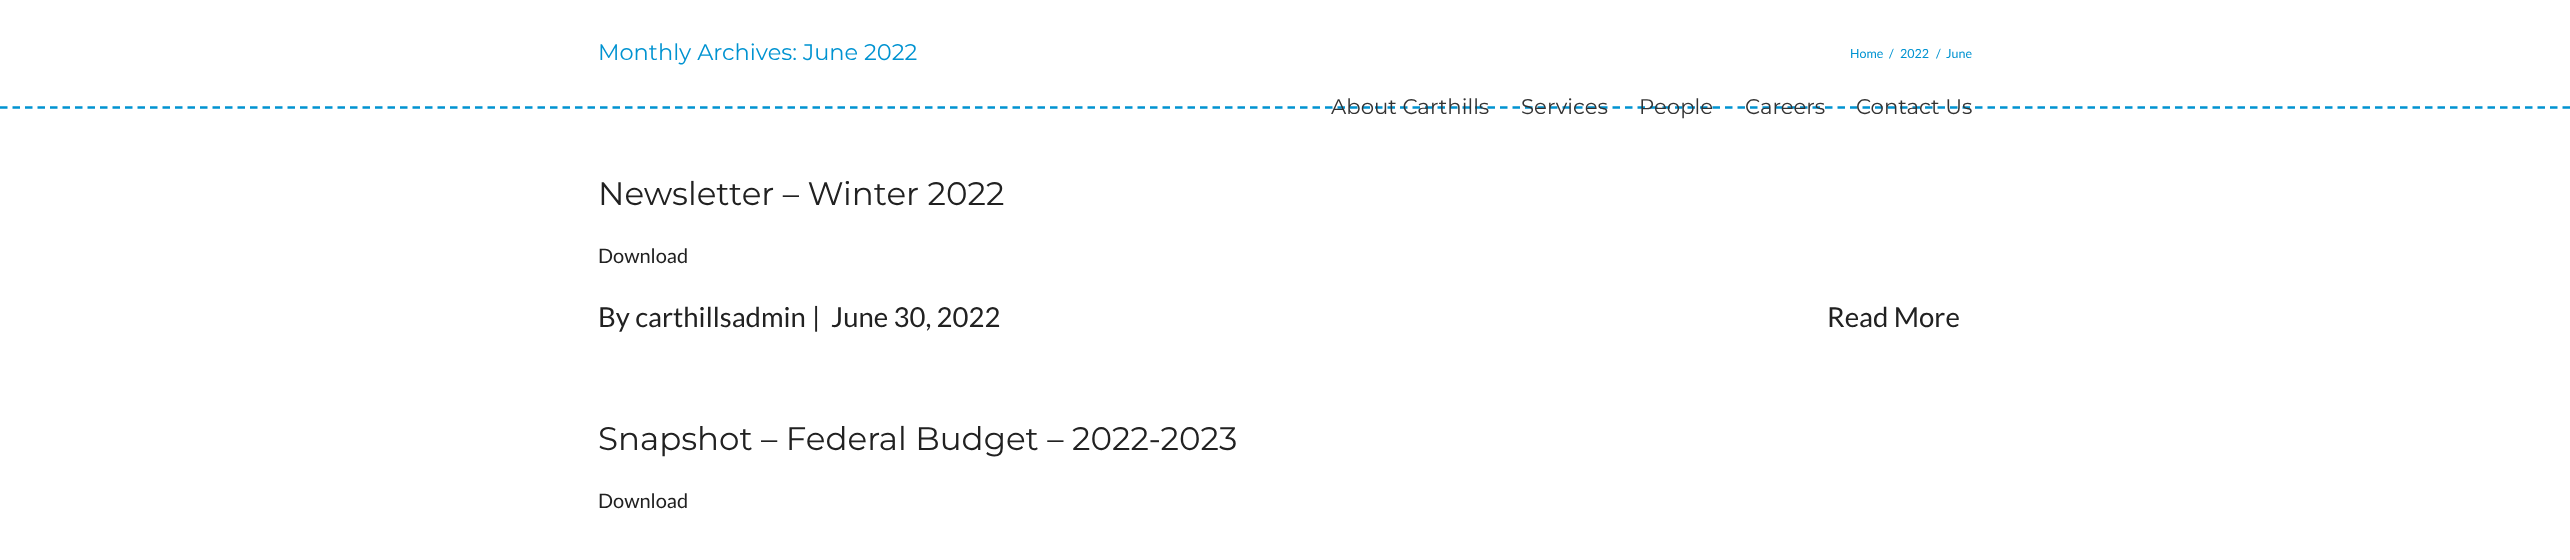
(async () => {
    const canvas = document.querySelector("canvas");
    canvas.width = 2570;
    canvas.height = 560;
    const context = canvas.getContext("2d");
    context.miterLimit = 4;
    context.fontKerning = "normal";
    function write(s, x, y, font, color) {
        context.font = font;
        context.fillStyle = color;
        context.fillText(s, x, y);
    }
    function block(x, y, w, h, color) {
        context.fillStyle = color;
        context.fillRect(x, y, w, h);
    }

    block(0, 0, 2570, 560, "rgb(255, 255, 255)");
    context.beginPath();
    context.moveTo(0, 107.5);
    context.lineTo(2570, 107.5);
    context.strokeStyle = "rgb(0, 147, 209)";
    context.lineWidth = 2.5;
    context.setLineDash([7.5, 5]);
    context.stroke();
    write("Monthly Archives: June 2022", 598, 60, "100 22.5px Montserrat", "rgb(0, 147, 209)");
    write("Home", 1850, 58, "12.5px Lato", "rgb(0, 147, 209)");
    write("/", 1889, 58, "12.5px Lato", "rgb(0, 147, 209)");
    write("2022", 1900, 58, "12.5px Lato", "rgb(0, 147, 209)");
    write("/", 1936, 58, "12.5px Lato", "rgb(0, 147, 209)");
    write("June", 1946, 58, "12.5px Lato", "rgb(0, 147, 209)");
    write("About Carthills", 1331, 114, "100 21.25px Montserrat", "rgb(51, 51, 51)");
    write("Services", 1521, 114, "100 21.25px Montserrat", "rgb(51, 51, 51)");
    write("People", 1639, 114, "100 21.25px Montserrat", "rgb(51, 51, 51)");
    write("Careers", 1745, 114, "100 21.25px Montserrat", "rgb(51, 51, 51)");
    write("Contact Us", 1856, 114, "100 21.25px Montserrat", "rgb(51, 51, 51)");
    write("Newsletter – Winter 2022", 598, 205, "100 32.5px Montserrat", "rgb(33, 33, 33)");
    write("Download", 598, 263, "20px Lato", "rgb(33, 33, 33)");
    write("By carthillsadmin", 598, 327, "27.5px Lato", "rgb(33, 33, 33)");
    write("|", 812, 327, "27.5px Lato", "rgb(33, 33, 33)");
    write("June 30, 2022", 831, 327, "27.5px Lato", "rgb(33, 33, 33)");
    write("Read More", 1827, 327, "27.5px Lato", "rgb(33, 33, 33)");
    write("Snapshot – Federal Budget – 2022-2023", 598, 450, "100 32.5px Montserrat", "rgb(33, 33, 33)");
    write("Download", 598, 508, "20px Lato", "rgb(33, 33, 33)");
})();
